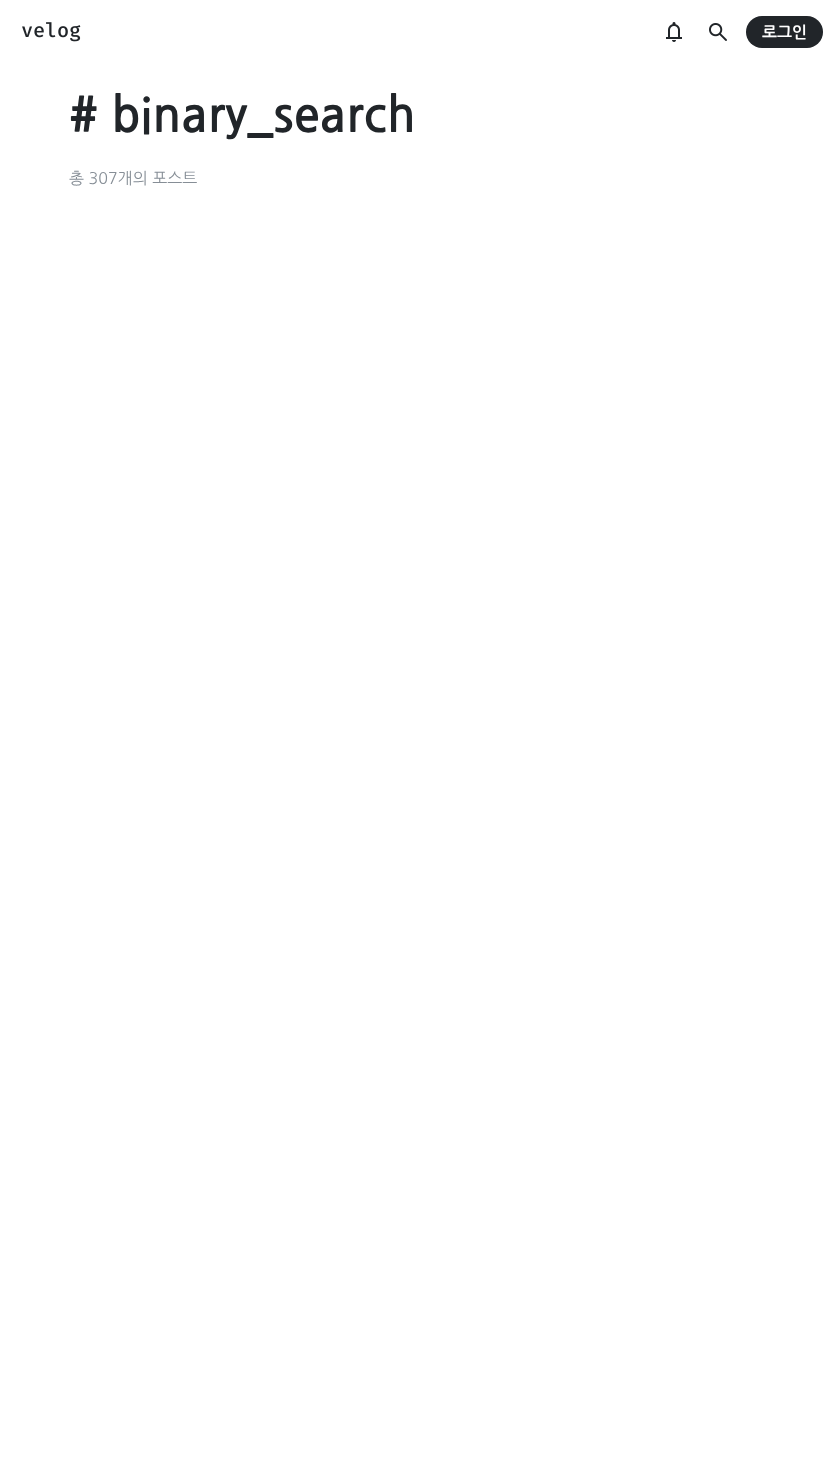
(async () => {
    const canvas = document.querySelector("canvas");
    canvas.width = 839;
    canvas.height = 1465;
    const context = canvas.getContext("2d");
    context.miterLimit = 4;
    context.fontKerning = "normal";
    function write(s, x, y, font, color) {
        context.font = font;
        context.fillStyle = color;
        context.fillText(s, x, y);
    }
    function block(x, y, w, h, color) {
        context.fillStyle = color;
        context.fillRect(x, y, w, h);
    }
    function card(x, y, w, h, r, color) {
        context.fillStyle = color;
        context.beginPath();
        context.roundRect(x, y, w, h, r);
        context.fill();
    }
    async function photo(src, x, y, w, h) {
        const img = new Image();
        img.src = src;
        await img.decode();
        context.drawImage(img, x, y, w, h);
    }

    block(0, 0, 839, 1465, "rgb(255, 255, 255)");
    await photo("media/1.png", 22, 22, 59, 20);
    await photo("media/2.png", 666, 22, 16, 20);
    await photo("media/3.png", 709, 23, 18, 18);
    card(746, 16, 77, 32, 16, "rgb(33, 37, 41)");
    write("로그인", 762, 38, "bold 16px NanumGothic", "rgb(255, 255, 255)");
    write("# binary_search", 69, 132, "bold 48px NanumGothic", "rgb(33, 37, 41)");
    write("총 307개의 포스트", 69, 184, "16px NanumGothic", "rgb(134, 142, 150)");
})();
